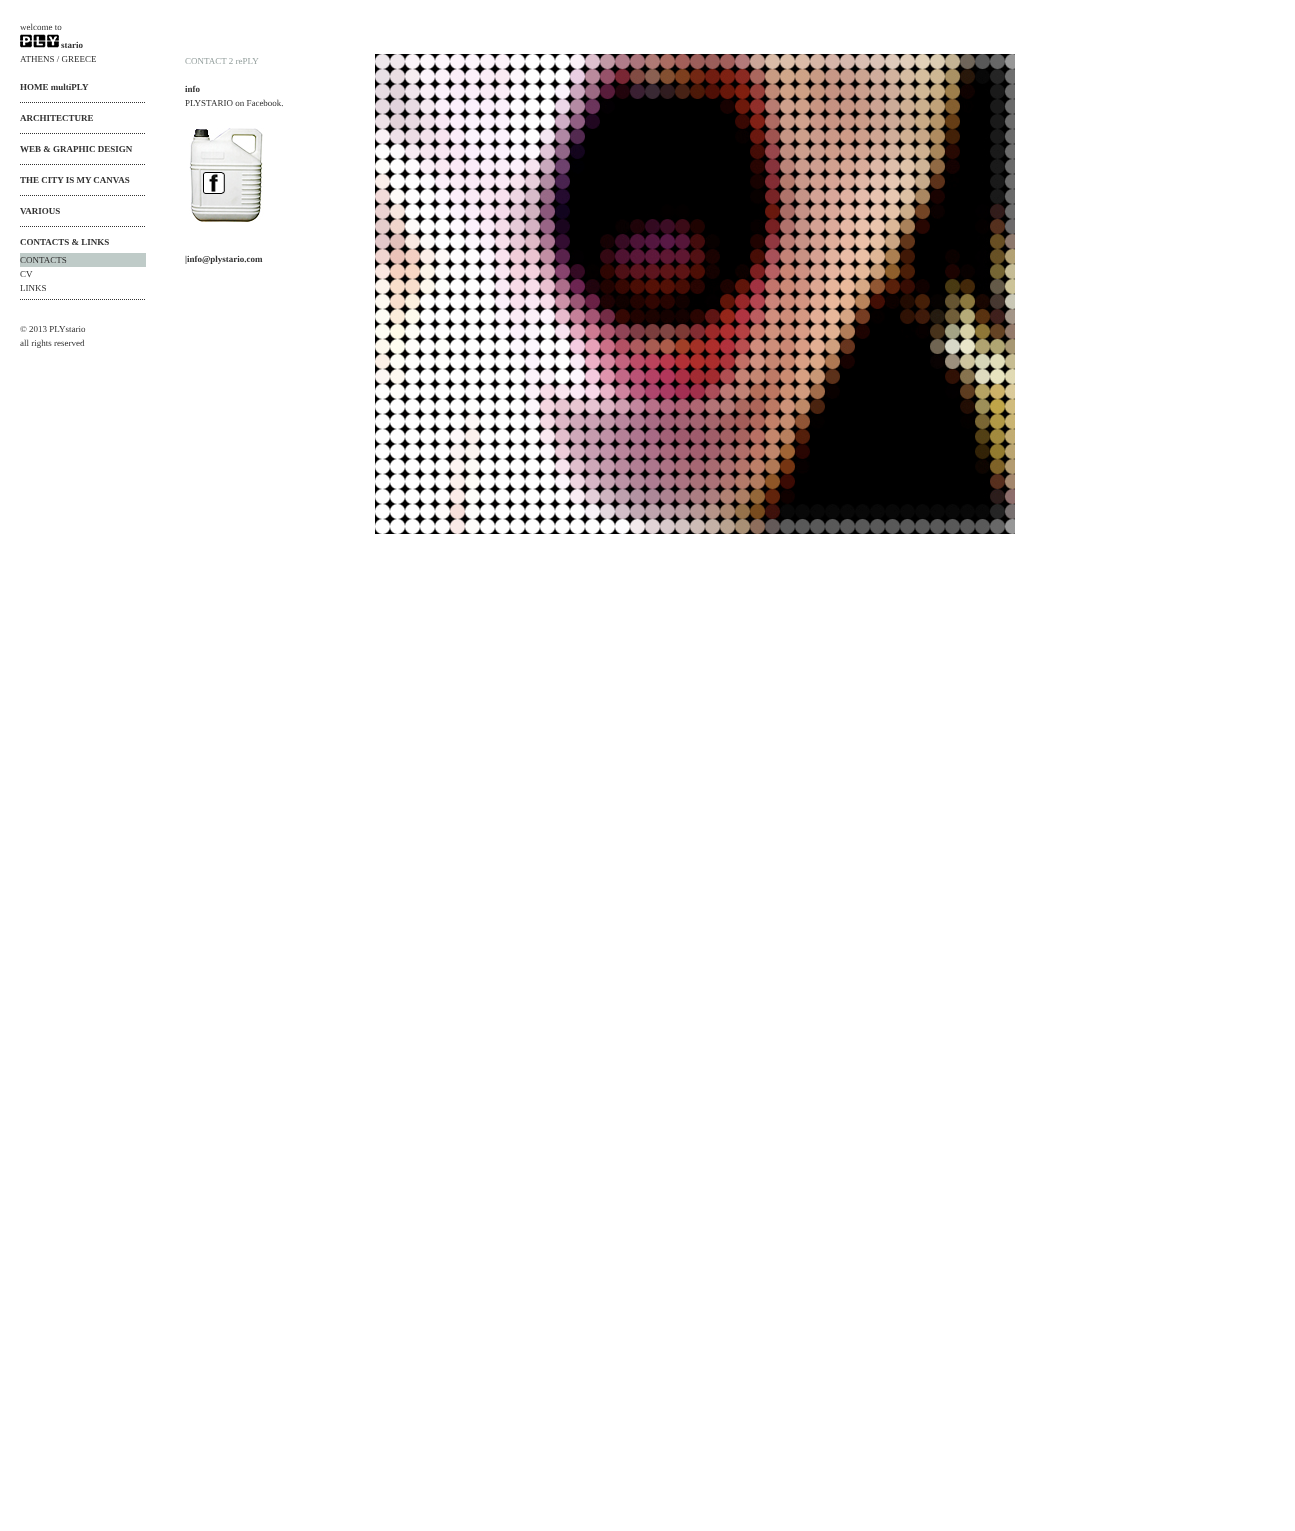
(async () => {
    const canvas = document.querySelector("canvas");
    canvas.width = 1295;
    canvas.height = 1531;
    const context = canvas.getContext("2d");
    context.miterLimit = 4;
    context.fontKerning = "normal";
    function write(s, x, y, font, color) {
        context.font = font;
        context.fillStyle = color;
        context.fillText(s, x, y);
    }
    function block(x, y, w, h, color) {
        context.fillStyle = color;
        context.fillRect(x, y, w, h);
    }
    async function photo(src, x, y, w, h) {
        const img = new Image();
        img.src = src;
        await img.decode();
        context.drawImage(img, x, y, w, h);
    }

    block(0, 0, 1295, 1531, "rgb(255, 255, 255)");
    write("welcome to", 20, 30, "9px Liberation Serif", "rgb(51, 51, 51)");
    await photo("media/1.png", 20, 34, 39, 14);
    write("stario", 61, 48, "bold 9px Liberation Serif", "rgb(51, 51, 51)");
    write("ATHENS / GREECE", 20, 62, "9px Liberation Serif", "rgb(51, 51, 51)");
    context.beginPath();
    context.moveTo(20, 102.5);
    context.lineTo(146, 102.5);
    context.strokeStyle = "rgb(51, 51, 51)";
    context.setLineDash([1, 1]);
    context.stroke();
    write("HOME multiPLY", 20, 90, "bold 9px Liberation Serif", "rgb(51, 51, 51)");
    context.beginPath();
    context.moveTo(20, 133.5);
    context.lineTo(146, 133.5);
    context.stroke();
    write("ARCHITECTURE", 20, 121, "bold 9px Liberation Serif", "rgb(51, 51, 51)");
    context.beginPath();
    context.moveTo(20, 164.5);
    context.lineTo(146, 164.5);
    context.stroke();
    write("WEB & GRAPHIC DESIGN", 20, 152, "bold 9px Liberation Serif", "rgb(51, 51, 51)");
    context.beginPath();
    context.moveTo(20, 195.5);
    context.lineTo(146, 195.5);
    context.stroke();
    write("THE CITY IS MY CANVAS", 20, 183, "bold 9px Liberation Serif", "rgb(51, 51, 51)");
    context.beginPath();
    context.moveTo(20, 226.5);
    context.lineTo(146, 226.5);
    context.stroke();
    write("VARIOUS", 20, 214, "bold 9px Liberation Serif", "rgb(51, 51, 51)");
    context.beginPath();
    context.moveTo(20, 299.5);
    context.lineTo(146, 299.5);
    context.stroke();
    write("CONTACTS & LINKS", 20, 245, "bold 9px Liberation Serif", "rgb(51, 51, 51)");
    block(20, 253, 126, 14, "rgb(191, 203, 200)");
    write("CONTACTS", 20, 263, "9px Liberation Serif", "rgb(51, 51, 51)");
    write("CV", 20, 277, "9px Liberation Serif", "rgb(51, 51, 51)");
    write("LINKS", 20, 291, "9px Liberation Serif", "rgb(51, 51, 51)");
    write("© 2013 PLYstario", 20, 332, "9px Liberation Serif", "rgb(51, 51, 51)");
    write("all rights reserved", 20, 346, "9px Liberation Serif", "rgb(51, 51, 51)");
    write("CONTACT 2 rePLY", 185, 64, "9px Liberation Serif", "rgb(151, 162, 160)");
    write("info", 185, 92, "bold 9px Liberation Serif", "rgb(51, 51, 51)");
    write("PLYSTARIO on Facebook.", 185, 106, "9px Liberation Serif", "rgb(51, 51, 51)");
    await photo("media/2.png", 189, 128, 75, 94);
    write("|info@plystario.com", 185, 262, "bold 9px Liberation Serif", "rgb(51, 51, 51)");
    await photo("media/3.png", 375, 54, 640, 480);
})();
